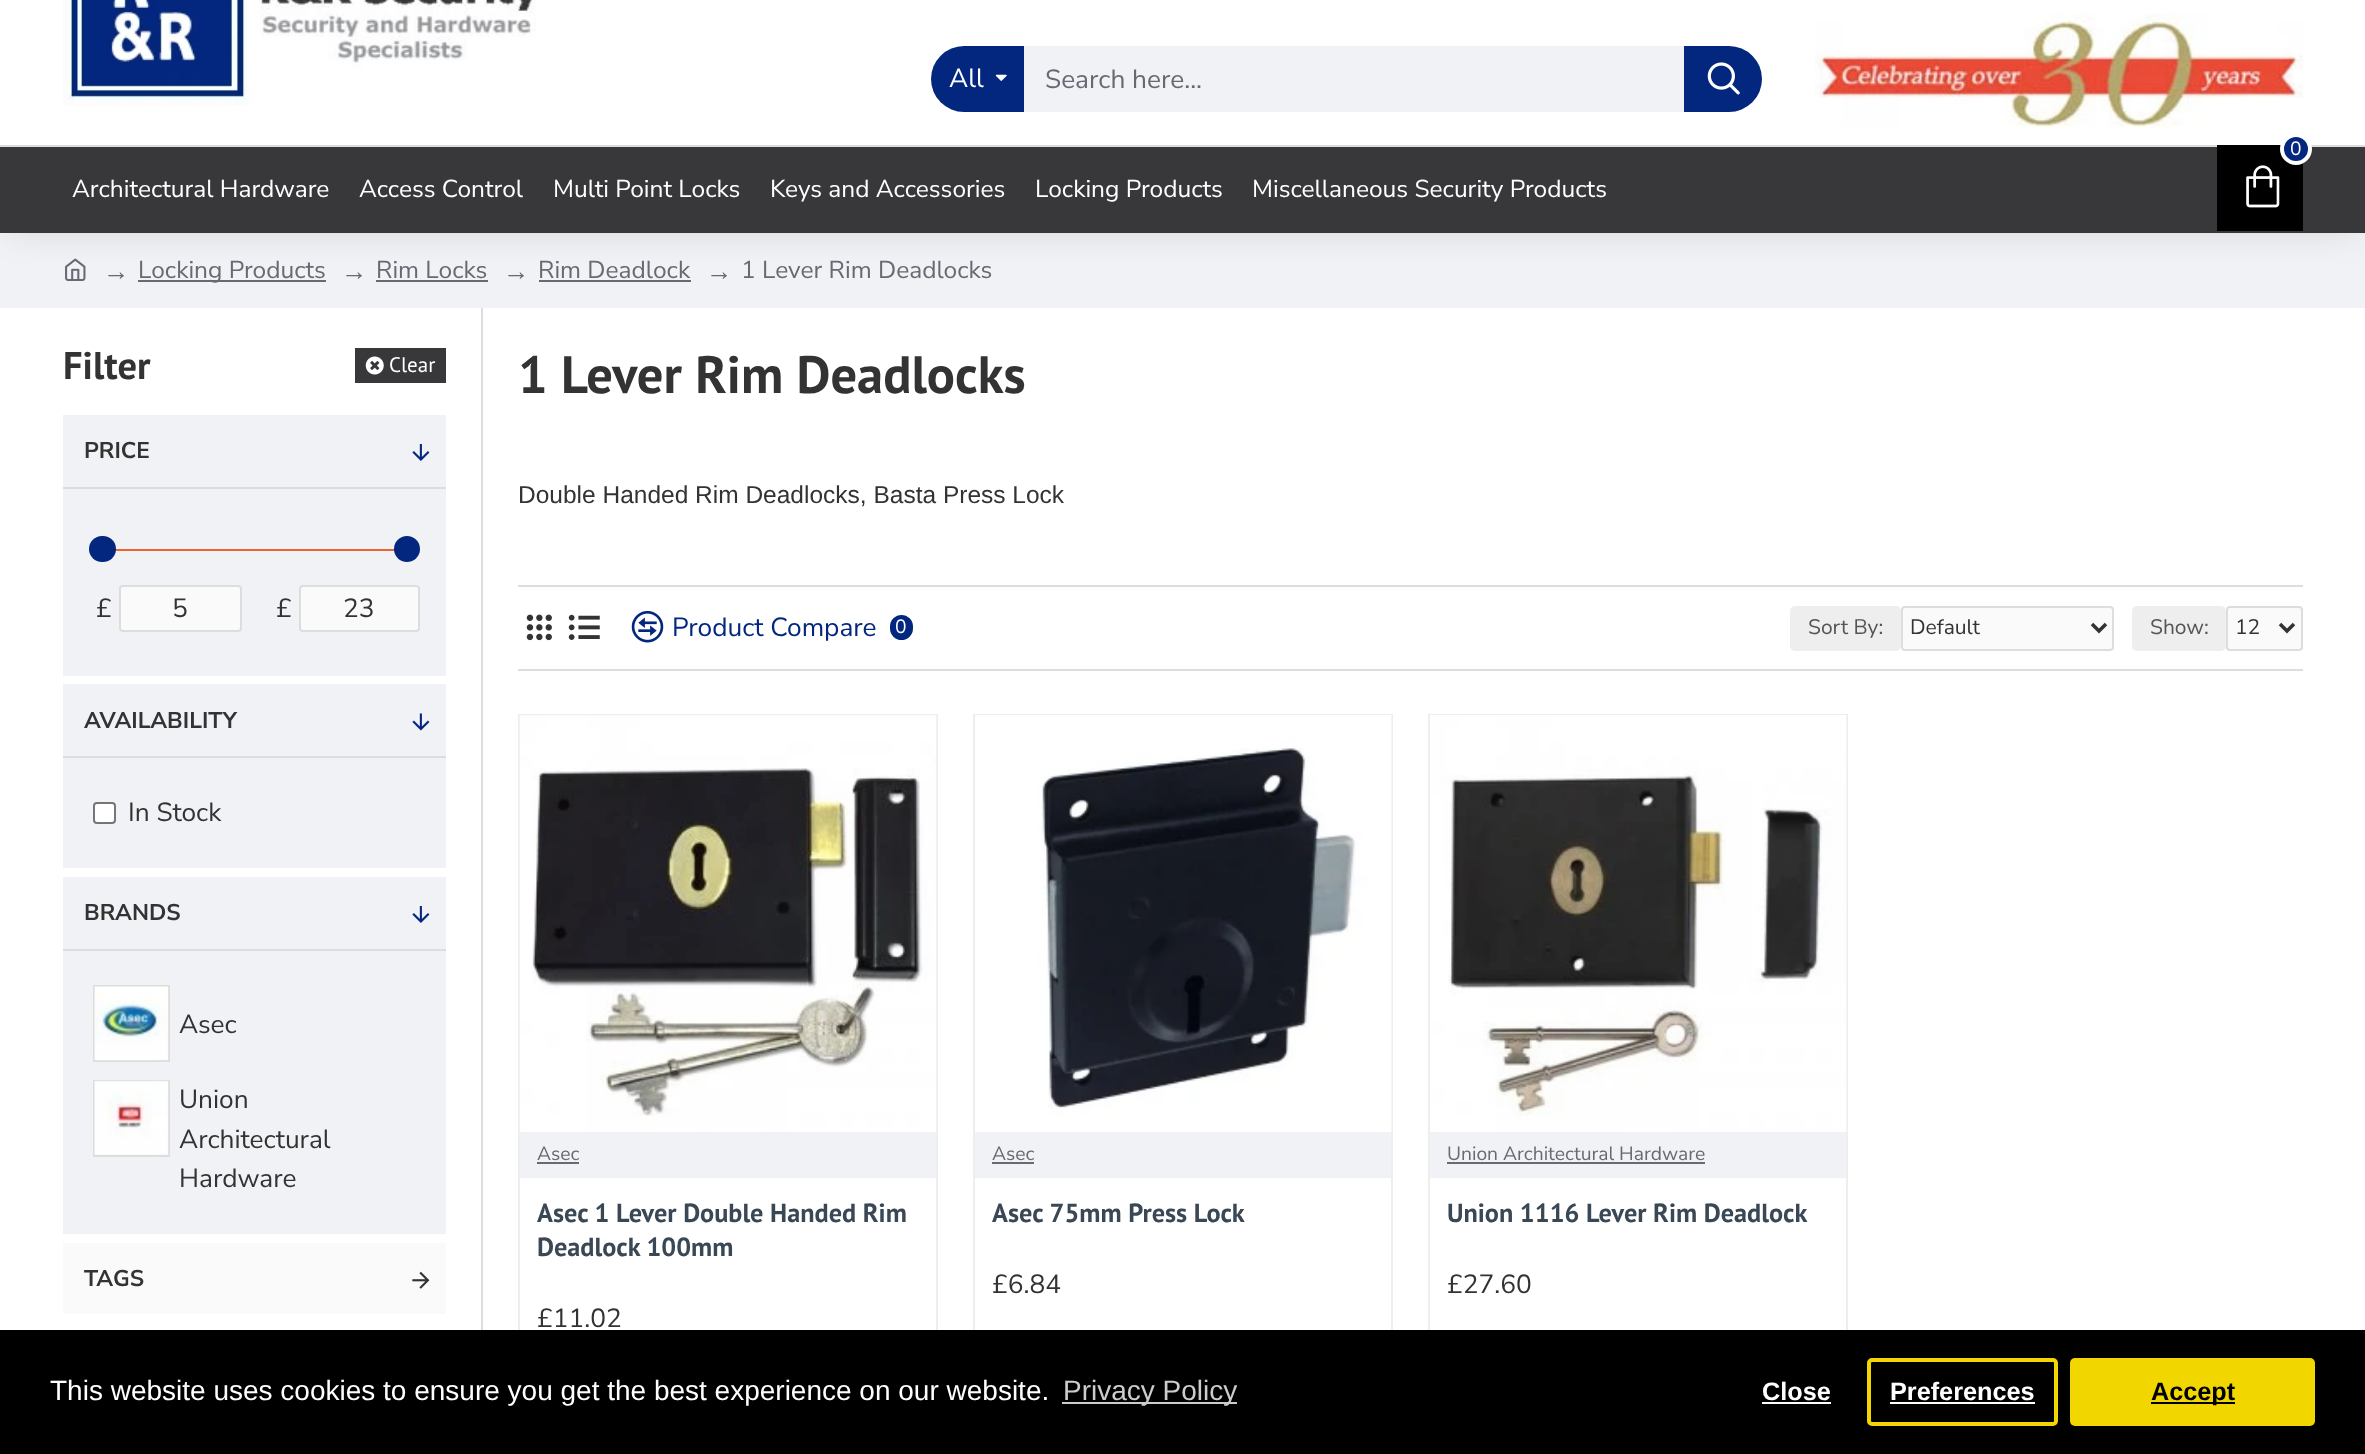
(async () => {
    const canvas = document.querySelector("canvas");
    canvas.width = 2365;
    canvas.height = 1454;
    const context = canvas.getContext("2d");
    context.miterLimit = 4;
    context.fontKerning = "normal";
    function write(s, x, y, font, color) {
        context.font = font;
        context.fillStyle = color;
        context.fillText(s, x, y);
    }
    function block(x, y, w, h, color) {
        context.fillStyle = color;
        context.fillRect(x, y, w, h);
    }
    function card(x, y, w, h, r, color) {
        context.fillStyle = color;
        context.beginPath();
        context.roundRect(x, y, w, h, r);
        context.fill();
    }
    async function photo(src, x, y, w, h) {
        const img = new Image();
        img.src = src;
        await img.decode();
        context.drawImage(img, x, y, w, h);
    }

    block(0, 0, 2365, 1454, "rgb(255, 255, 255)");
    block(0, 233, 2365, 75, "rgb(240, 242, 245)");
    await photo("media/6.png", 65, 258, 21, 23);
    block(138, 280, 188, 2, "rgb(105, 105, 115)");
    block(376, 280, 112, 2, "rgb(105, 105, 115)");
    block(539, 280, 152, 2, "rgb(105, 105, 115)");
    context.fillStyle = "rgba(0, 0, 0, 0.1)";
    context.filter = "blur(17.5px)";
    context.beginPath();
    context.rect(9, -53, 2348, 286);
    context.fill();
    context.filter = "none";
    block(0, 0, 2365, 145, "rgb(255, 255, 255)");
    await photo("media/1.png", 63, 0, 473, 106);
    context.fillStyle = "rgb(3, 38, 126)";
    context.beginPath();
    context.roundRect(931, 46, 93, 66, [33, 0, 0, 33]);
    context.fill();
    write("All", 949, 87, "26.25px Nunito Sans", "rgb(255, 255, 255)");
    await photo("media/2.png", 995, 74, 12, 7);
    block(1024, 46, 660, 66, "rgb(240, 242, 245)");
    write("Search here...", 1045, 88, "26.25px Nunito Sans", "rgb(105, 105, 115)");
    context.fillStyle = "rgb(3, 38, 126)";
    context.beginPath();
    context.roundRect(1684, 46, 78, 66, [0, 33, 33, 0]);
    context.fill();
    await photo("media/3.png", 1707, 62, 33, 33);
    await photo("media/4.png", 1815, 13, 488, 115);
    block(0, 147, 2365, 86, "rgb(56, 56, 58)");
    block(0, 145, 2365, 2, "rgb(221, 221, 221)");
    block(2217, 145, 86, 86, "rgb(0, 0, 0)");
    context.fillStyle = "rgb(3, 38, 126)";
    context.beginPath();
    context.arc(2296, 149, 14, 0, Math.PI * 2);
    context.fill();
    context.strokeStyle = "rgb(255, 255, 255)";
    context.lineWidth = 4;
    context.stroke();
    write("0", 2290, 155, "19.25px Nunito Sans", "rgb(255, 255, 255)");
    await photo("media/5.png", 2246, 165, 34, 43);
    write("Architectural Hardware", 72, 197, "24.5px Nunito Sans", "rgb(255, 255, 255)");
    write("Access Control", 359, 197, "24.5px Nunito Sans", "rgb(255, 255, 255)");
    write("Multi Point Locks", 553, 197, "24.5px Nunito Sans", "rgb(255, 255, 255)");
    write("Keys and Accessories", 770, 197, "24.5px Nunito Sans", "rgb(255, 255, 255)");
    write("Locking Products", 1035, 197, "24.5px Nunito Sans", "rgb(255, 255, 255)");
    write("Miscellaneous Security Products", 1252, 197, "24.5px Nunito Sans", "rgb(255, 255, 255)");
    write("→", 103, 280, "26.25px Liberation Serif", "rgb(105, 105, 115)");
    write("Locking Products", 138, 278, "24.5px Nunito Sans", "rgb(105, 105, 115)");
    write("→", 341, 280, "26.25px Liberation Serif", "rgb(105, 105, 115)");
    write("Rim Locks", 376, 278, "24.5px Nunito Sans", "rgb(105, 105, 115)");
    write("→", 503, 280, "26.25px Liberation Serif", "rgb(105, 105, 115)");
    write("Rim Deadlock", 538, 278, "24.5px Nunito Sans", "rgb(105, 105, 115)");
    write("→", 706, 280, "26.25px Liberation Serif", "rgb(105, 105, 115)");
    write("1 Lever Rim Deadlocks", 741, 278, "24.5px Nunito Sans", "rgb(105, 105, 115)");
    block(481, 308, 2, 1022, "rgb(221, 221, 221)");
    write("Filter", 63, 379, "bold 38.5px PT Sans", "rgb(51, 51, 51)");
    block(355, 348, 91, 35, "rgb(56, 56, 58)");
    await photo("media/7.png", 365, 356, 19, 19);
    write("Clear", 389, 372, "21px PT Sans", "rgb(255, 255, 255)");
    block(63, 415, 383, 72, "rgb(240, 242, 245)");
    write("PRICE", 84, 458, "bold 22.75px Nunito Sans", "rgb(51, 51, 51)");
    await photo("media/8.png", 412, 444, 18, 17);
    block(63, 489, 383, 187, "rgb(240, 242, 245)");
    block(63, 487, 383, 2, "rgb(221, 221, 221)");
    context.fillStyle = "rgb(233, 102, 49)";
    context.beginPath();
    context.moveTo(112, 549);
    context.lineTo(399, 549);
    context.lineTo(405, 549);
    context.lineTo(408, 550);
    context.lineTo(399, 551);
    context.lineTo(112, 551);
    context.lineTo(103, 550);
    context.lineTo(106, 549);
    context.closePath();
    context.fill();
    card(89, 536, 27, 26, 13, "rgb(3, 38, 126)");
    context.beginPath();
    context.arc(407, 549, 13, 0, Math.PI * 2);
    context.fill();
    write("£", 96, 617, "26.25px Nunito Sans", "rgb(51, 51, 51)");
    context.fillStyle = "rgb(250, 250, 250)";
    context.beginPath();
    context.roundRect(120, 586, 121, 45, 3);
    context.fill();
    context.strokeStyle = "rgb(221, 221, 221)";
    context.lineWidth = 2;
    context.stroke();
    write("5", 172, 617, "26.25px Nunito Sans", "rgb(51, 51, 51)");
    write("£", 276, 617, "26.25px Nunito Sans", "rgb(51, 51, 51)");
    context.fillStyle = "rgb(250, 250, 250)";
    context.beginPath();
    context.roundRect(300, 586, 119, 45, 3);
    context.fill();
    context.stroke();
    write("23", 343, 617, "26.25px Nunito Sans", "rgb(51, 51, 51)");
    block(63, 684, 383, 72, "rgb(240, 242, 245)");
    write("AVAILABILITY", 84, 728, "bold 22.75px Nunito Sans", "rgb(51, 51, 51)");
    await photo("media/9.png", 412, 713, 18, 18);
    block(63, 758, 383, 110, "rgb(240, 242, 245)");
    block(63, 756, 383, 2, "rgb(221, 221, 221)");
    context.fillStyle = "rgb(255, 255, 255)";
    context.beginPath();
    context.roundRect(94, 803, 21, 20, 3);
    context.fill();
    context.strokeStyle = "rgb(118, 118, 118)";
    context.stroke();
    write("In Stock", 128, 821, "26.25px Nunito Sans", "rgb(51, 51, 51)");
    block(63, 877, 383, 72, "rgb(240, 242, 245)");
    write("BRANDS", 84, 920, "bold 22.75px Nunito Sans", "rgb(51, 51, 51)");
    await photo("media/8.png", 412, 906, 18, 17);
    block(63, 951, 383, 283, "rgb(240, 242, 245)");
    block(63, 949, 383, 2, "rgb(221, 221, 221)");
    context.strokeStyle = "rgb(221, 221, 221)";
    context.strokeRect(94, 986, 75, 75);
    await photo("media/10.png", 94, 986, 75, 75);
    write("Asec", 179, 1033, "26.25px Nunito Sans", "rgb(51, 51, 51)");
    context.strokeRect(94, 1081, 75, 75);
    await photo("media/11.png", 94, 1080, 75, 75);
    write("Union", 179, 1108, "26.25px Nunito Sans", "rgb(51, 51, 51)");
    write("Architectural", 179, 1148, "26.25px Nunito Sans", "rgb(51, 51, 51)");
    write("Hardware", 179, 1187, "26.25px Nunito Sans", "rgb(51, 51, 51)");
    block(63, 1243, 383, 71, "rgb(250, 250, 250)");
    write("TAGS", 84, 1286, "bold 22.75px Nunito Sans", "rgb(51, 51, 51)");
    await photo("media/12.png", 412, 1271, 18, 18);
    write("1 Lever Rim Deadlocks", 518, 393, "bold 52.5px PT Sans", "rgb(51, 51, 51)");
    write("Double Handed Rim Deadlocks, Basta Press Lock", 518, 503, "24.5px Liberation Sans", "rgb(51, 51, 51)");
    block(518, 585, 1785, 2, "rgb(221, 221, 221)");
    block(518, 669, 1785, 2, "rgb(221, 221, 221)");
    await photo("media/13.png", 526, 614, 26, 27);
    await photo("media/14.png", 568, 614, 32, 26);
    await photo("media/15.png", 631, 611, 33, 32);
    write("Product Compare", 672, 636, "26.25px Nunito Sans", "rgb(3, 38, 126)");
    context.beginPath();
    context.roundRect(888, 613, 27, 29, 13.5);
    context.fill();
    context.strokeStyle = "rgb(255, 255, 255)";
    context.lineWidth = 4;
    context.stroke();
    write("0", 895, 633, "19.25px Nunito Sans", "rgb(255, 255, 255)");
    card(1790, 606, 111, 45, 5, "rgb(238, 238, 238)");
    write("Sort By:", 1808, 634, "21px Nunito Sans", "rgb(85, 85, 85)");
    context.fillStyle = "rgb(250, 250, 250)";
    context.beginPath();
    context.roundRect(1902, 607, 211, 43, 3);
    context.fill();
    context.strokeStyle = "rgb(221, 221, 221)";
    context.lineWidth = 2;
    context.stroke();
    context.beginPath();
    context.moveTo(2092, 624);
    context.lineTo(2099, 631);
    context.lineTo(2106, 624);
    context.strokeStyle = "rgb(51, 51, 51)";
    context.lineWidth = 3.5;
    context.stroke();
    write("Default", 1910, 634, "21px Nunito Sans", "rgb(51, 51, 51)");
    card(2132, 606, 94, 45, 5, "rgb(238, 238, 238)");
    write("Show:", 2150, 634, "21px Nunito Sans", "rgb(85, 85, 85)");
    context.fillStyle = "rgb(250, 250, 250)";
    context.beginPath();
    context.roundRect(2227, 607, 75, 43, 3);
    context.fill();
    context.strokeStyle = "rgb(221, 221, 221)";
    context.lineWidth = 2;
    context.stroke();
    context.beginPath();
    context.moveTo(2280, 624);
    context.lineTo(2287, 631);
    context.lineTo(2294, 624);
    context.strokeStyle = "rgb(51, 51, 51)";
    context.lineWidth = 3.5;
    context.stroke();
    write("12", 2235, 634, "21px Nunito Sans", "rgb(51, 51, 51)");
    context.strokeStyle = "rgb(238, 238, 238)";
    context.lineWidth = 2;
    context.strokeRect(519, 715, 418, 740);
    await photo("media/16.png", 519, 715, 418, 417);
    block(520, 1132, 416, 46, "rgb(240, 242, 245)");
    write("Asec", 537, 1160, "19.25px Nunito Sans", "rgb(105, 105, 115)");
    block(537, 1162, 42, 2, "rgb(105, 105, 115)");
    write("Asec 1 Lever Double Handed Rim", 537, 1222, "bold 26.25px PT Sans", "rgb(58, 71, 84)");
    write("Deadlock 100mm", 537, 1256, "bold 26.25px PT Sans", "rgb(58, 71, 84)");
    write("£11.02", 537, 1327, "26.25px Nunito Sans", "rgb(51, 51, 51)");
    context.strokeRect(974, 715, 418, 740);
    await photo("media/17.png", 975, 715, 417, 417);
    block(975, 1132, 416, 46, "rgb(240, 242, 245)");
    write("Asec", 992, 1160, "19.25px Nunito Sans", "rgb(105, 105, 115)");
    block(992, 1162, 42, 2, "rgb(105, 105, 115)");
    write("Asec 75mm Press Lock", 992, 1222, "bold 26.25px PT Sans", "rgb(58, 71, 84)");
    write("£6.84", 992, 1293, "26.25px Nunito Sans", "rgb(51, 51, 51)");
    context.strokeRect(1429, 715, 418, 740);
    await photo("media/18.png", 1430, 715, 417, 417);
    block(1430, 1132, 416, 46, "rgb(240, 242, 245)");
    write("Union Architectural Hardware", 1447, 1160, "19.25px Nunito Sans", "rgb(105, 105, 115)");
    block(1447, 1162, 258, 2, "rgb(105, 105, 115)");
    write("Union 1116 Lever Rim Deadlock", 1447, 1222, "bold 26.25px PT Sans", "rgb(58, 71, 84)");
    write("£27.60", 1447, 1293, "26.25px Nunito Sans", "rgb(51, 51, 51)");
    block(0, 1330, 2365, 124, "rgb(0, 0, 0)");
    write("This website uses cookies to ensure you get the best experience on our website.", 50, 1400, "28px Liberation Sans", "rgb(255, 255, 255)");
    block(1062, 1402, 175, 2, "rgb(204, 204, 204)");
    write("Privacy Policy", 1063, 1400, "28px Liberation Sans", "rgb(204, 204, 204)");
    write("Close", 1762, 1400, "bold 25.25px Liberation Sans", "rgb(255, 255, 255)");
    block(1762, 1402, 69, 2, "rgb(255, 255, 255)");
    context.beginPath();
    context.roundRect(1869, 1360, 187, 64, 3);
    context.strokeStyle = "rgb(241, 214, 0)";
    context.lineWidth = 4;
    context.stroke();
    write("Preferences", 1890, 1400, "bold 25.25px Liberation Sans", "rgb(255, 255, 255)");
    block(1890, 1402, 145, 2, "rgb(255, 255, 255)");
    card(2070, 1358, 245, 68, 5, "rgb(241, 214, 0)");
    block(2151, 1402, 84, 2, "rgb(0, 0, 0)");
    write("Accept", 2151, 1400, "bold 25.25px Liberation Sans", "rgb(0, 0, 0)");
})();
